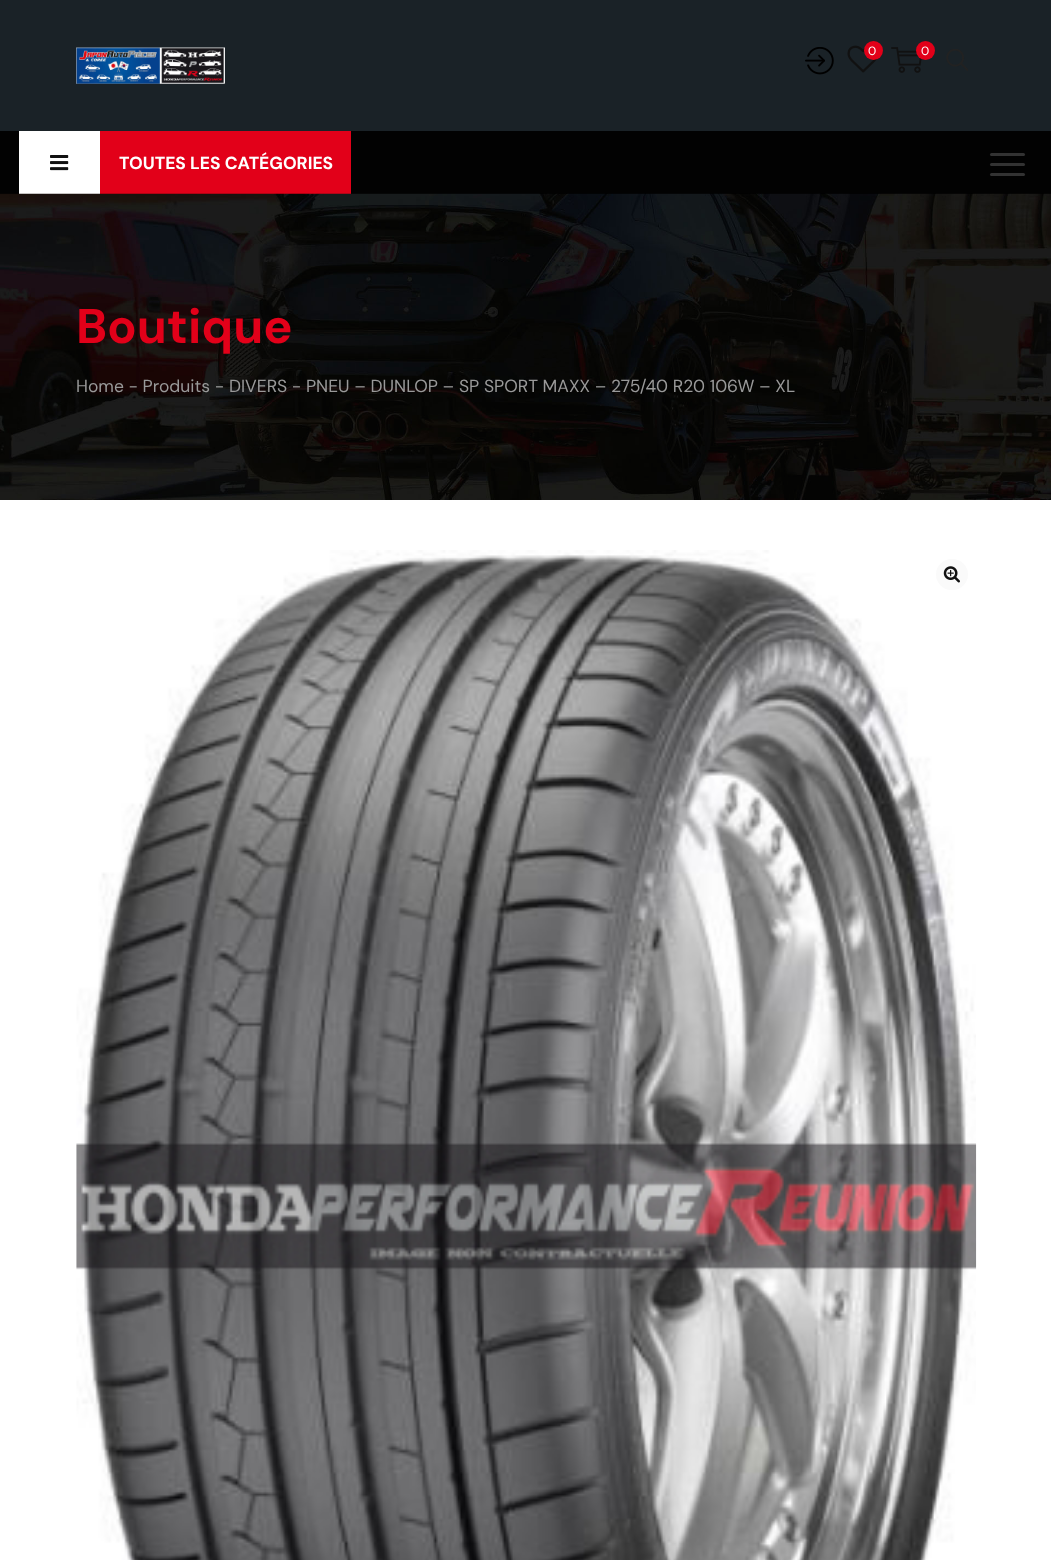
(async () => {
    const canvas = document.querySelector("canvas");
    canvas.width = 1051;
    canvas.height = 1560;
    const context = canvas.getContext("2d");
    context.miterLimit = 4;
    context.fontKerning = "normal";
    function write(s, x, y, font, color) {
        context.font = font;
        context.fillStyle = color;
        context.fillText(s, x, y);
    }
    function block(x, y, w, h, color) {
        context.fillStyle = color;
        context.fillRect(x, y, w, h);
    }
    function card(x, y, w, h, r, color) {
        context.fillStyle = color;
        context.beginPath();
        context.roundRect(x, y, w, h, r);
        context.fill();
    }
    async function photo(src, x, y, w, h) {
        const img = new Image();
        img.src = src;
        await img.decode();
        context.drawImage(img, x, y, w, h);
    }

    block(0, 0, 1051, 1560, "rgb(255, 255, 255)");
    block(0, 0, 1051, 131, "rgb(26, 34, 39)");
    await photo("media/1.png", 76, 47, 149, 37);
    await photo("media/2.png", 805, 47, 29, 28);
    await photo("media/3.png", 847, 45, 31, 28);
    context.fillStyle = "rgb(226, 0, 25)";
    context.beginPath();
    context.arc(873.5, 50.5, 9.5, 0, Math.PI * 2);
    context.fill();
    write("0", 868, 55, "12px DM Sans", "rgb(255, 255, 255)");
    await photo("media/4.png", 891, 47, 31, 26);
    context.fillStyle = "rgb(226, 0, 25)";
    context.beginPath();
    context.arc(925.5, 50.5, 9.5, 0, Math.PI * 2);
    context.fill();
    write("0", 921, 55, "12px DM Sans", "rgb(255, 255, 255)");
    await photo("media/5.png", 946, 49, 22, 22);
    block(0, 131, 1051, 63, "rgb(2, 2, 2)");
    block(100, 131, 251, 63, "rgb(226, 0, 25)");
    block(19, 131, 81, 63, "rgb(255, 255, 255)");
    await photo("media/6.png", 50, 155, 19, 16);
    write("TOUTES LES CATÉGORIES", 119, 169, "bold 17.5px DM Sans", "rgb(255, 255, 255)");
    card(990, 163, 35, 3, 1.5, "rgb(50, 50, 50)");
    card(990, 153, 35, 3, 1.5, "rgb(50, 50, 50)");
    card(990, 173, 35, 3, 1.5, "rgb(50, 50, 50)");
    await photo("media/7.png", 0, 193, 1051, 307);
    write("Boutique", 76, 343, "bold 48.75px DM Sans", "rgb(226, 0, 25)");
    write("Home - Produits - DIVERS - PNEU – DUNLOP – SP SPORT MAXX – 275/40 R20 106W – XL", 76, 392, "17.5px DM Sans", "rgb(153, 153, 153)");
    await photo("media/8.png", 76, 550, 901, 1010);
    card(936, 559, 32, 31, 15.5, "rgb(250, 250, 250)");
    await photo("media/9.png", 943, 566, 17, 17);
})();
